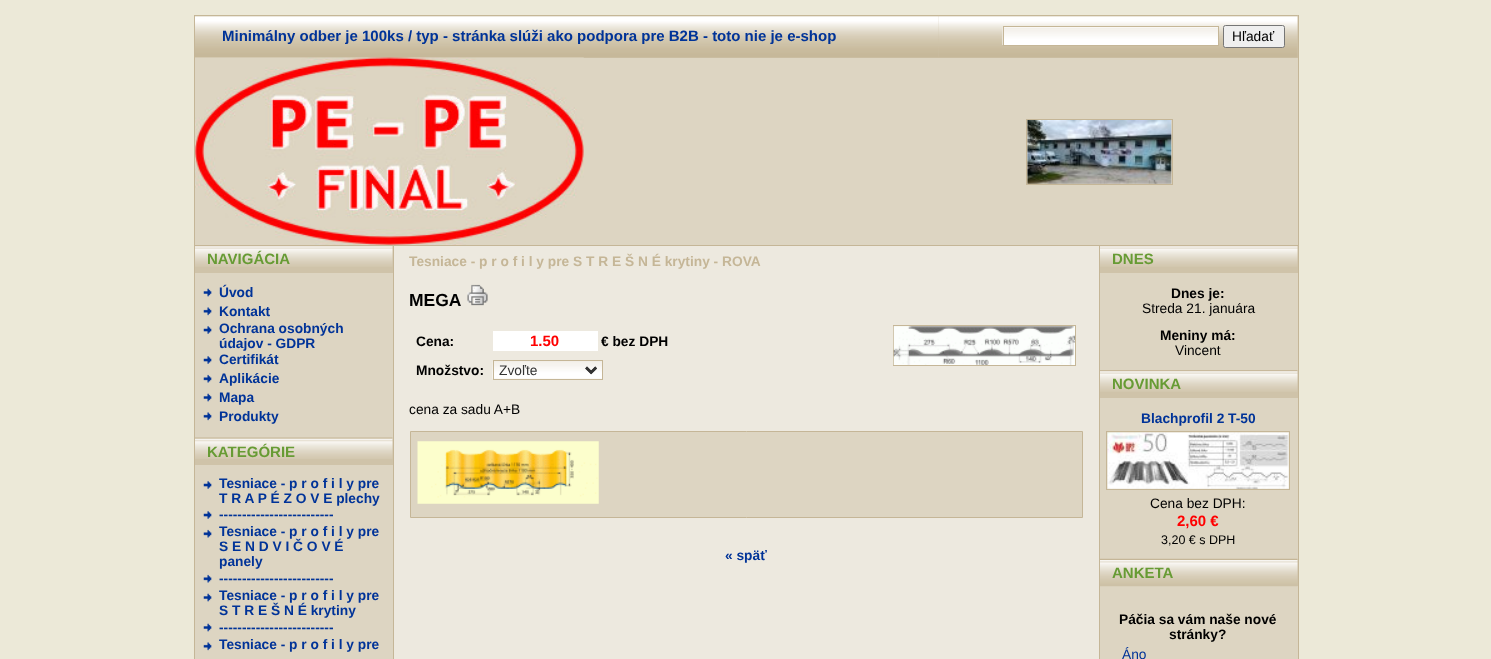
(async () => {
    const canvas = document.querySelector("canvas");
    canvas.width = 1491;
    canvas.height = 659;
    const context = canvas.getContext("2d");
    context.miterLimit = 4;
    context.fontKerning = "normal";
    function write(s, x, y, font, color) {
        context.font = font;
        context.fillStyle = color;
        context.fillText(s, x, y);
    }
    function block(x, y, w, h, color) {
        context.fillStyle = color;
        context.fillRect(x, y, w, h);
    }
    async function photo(src, x, y, w, h) {
        const img = new Image();
        img.src = src;
        await img.decode();
        context.drawImage(img, x, y, w, h);
    }

    block(0, 0, 1491, 659, "rgb(236, 233, 216)");
    block(194, 15, 1, 644, "rgb(197, 182, 151)");
    block(195, 15, 1103, 43, "rgb(207, 195, 169)");
    await photo("media/1.png", 195, 15, 744, 43);
    write("Minimálny odber je 100ks / typ - stránka slúži ako podpora pre B2B - toto nie je e-shop", 222, 41, "bold 15px Liberation Sans", "rgb(0, 51, 152)");
    await photo("media/2.png", 938, 15, 360, 43);
    block(1004, 27, 214, 1, "rgb(255, 255, 255)");
    await photo("media/3.png", 1002, 27, 216, 18);
    context.strokeStyle = "rgb(197, 182, 151)";
    context.strokeRect(1003.5, 26.5, 215, 19);
    context.fillStyle = "rgb(239, 239, 239)";
    context.beginPath();
    context.roundRect(1223.5, 25.5, 61, 22, 2);
    context.fill();
    context.strokeStyle = "rgb(118, 118, 118)";
    context.stroke();
    write("Hľadať", 1232, 41, "13.75px Liberation Sans", "rgb(0, 0, 0)");
    block(583, 58, 715, 187, "rgb(221, 213, 194)");
    await photo("media/4.png", 195, 57, 389, 188);
    block(195, 245, 1103, 1, "rgb(197, 182, 151)");
    context.strokeStyle = "rgb(197, 182, 151)";
    context.strokeRect(1026.5, 119.5, 146, 65);
    await photo("media/5.png", 1027, 120, 145, 64);
    block(195, 273, 198, 386, "rgb(221, 213, 194)");
    block(195, 246, 198, 27, "rgb(207, 195, 169)");
    await photo("media/6.png", 195, 246, 198, 21);
    write("NAVIGÁCIA", 207, 264, "bold 15px Liberation Sans", "rgb(103, 155, 52)");
    await photo("media/7.png", 203, 288, 9, 9);
    write("Úvod", 219, 297, "bold 13.75px Liberation Sans", "rgb(0, 51, 152)");
    await photo("media/8.png", 203, 307, 9, 9);
    write("Kontakt", 219, 316, "bold 13.75px Liberation Sans", "rgb(0, 51, 152)");
    await photo("media/9.png", 203, 326, 9, 8);
    write("Ochrana osobných", 219, 333, "bold 13.75px Liberation Sans", "rgb(0, 51, 152)");
    write("údajov - GDPR", 219, 348, "bold 13.75px Liberation Sans", "rgb(0, 51, 152)");
    await photo("media/9.png", 203, 356, 9, 8);
    write("Certifikát", 219, 364, "bold 13.75px Liberation Sans", "rgb(0, 51, 152)");
    await photo("media/10.png", 203, 374, 9, 9);
    write("Aplikácie", 219, 383, "bold 13.75px Liberation Sans", "rgb(0, 51, 152)");
    await photo("media/7.png", 203, 393, 9, 9);
    write("Mapa", 219, 402, "bold 13.75px Liberation Sans", "rgb(0, 51, 152)");
    await photo("media/8.png", 203, 412, 9, 9);
    write("Produkty", 219, 421, "bold 13.75px Liberation Sans", "rgb(0, 51, 152)");
    await photo("media/11.png", 195, 437, 198, 2);
    block(195, 439, 198, 26, "rgb(207, 195, 169)");
    await photo("media/12.png", 195, 438, 198, 21);
    write("KATEGÓRIE", 207, 457, "bold 15px Liberation Sans", "rgb(103, 155, 52)");
    await photo("media/9.png", 203, 481, 9, 8);
    write("Tesniace - p r o f i l y pre", 219, 488, "bold 13.75px Liberation Sans", "rgb(0, 51, 152)");
    write("T R A P É Z O V E plechy", 219, 503, "bold 13.75px Liberation Sans", "rgb(0, 51, 152)");
    await photo("media/9.png", 203, 511, 9, 8);
    write("-------------------------", 219, 519, "bold 13.75px Liberation Sans", "rgb(0, 51, 152)");
    await photo("media/10.png", 203, 529, 9, 9);
    write("Tesniace - p r o f i l y pre", 219, 536, "bold 13.75px Liberation Sans", "rgb(0, 51, 152)");
    write("S E N D V I Č O V É", 219, 551, "bold 13.75px Liberation Sans", "rgb(0, 51, 152)");
    write("panely", 219, 566, "bold 13.75px Liberation Sans", "rgb(0, 51, 152)");
    await photo("media/10.png", 203, 574, 9, 9);
    write("-------------------------", 219, 583, "bold 13.75px Liberation Sans", "rgb(0, 51, 152)");
    await photo("media/7.png", 203, 593, 9, 9);
    write("Tesniace - p r o f i l y pre", 219, 600, "bold 13.75px Liberation Sans", "rgb(0, 51, 152)");
    write("S T R E Š N É krytiny", 219, 615, "bold 13.75px Liberation Sans", "rgb(0, 51, 152)");
    await photo("media/7.png", 203, 623, 9, 9);
    write("-------------------------", 219, 632, "bold 13.75px Liberation Sans", "rgb(0, 51, 152)");
    await photo("media/8.png", 203, 642, 9, 9);
    write("Tesniace - p r o f i l y pre", 219, 649, "bold 13.75px Liberation Sans", "rgb(0, 51, 152)");
    block(393, 246, 1, 413, "rgb(197, 182, 151)");
    block(394, 246, 705, 413, "rgb(237, 233, 223)");
    write("Tesniace - p r o f i l y pre S T R E Š N É krytiny - ROVA", 409, 266, "bold 13.75px Liberation Sans", "rgb(197, 182, 151)");
    write("MEGA", 409, 306, "bold 17.5px Liberation Sans", "rgb(0, 0, 0)");
    await photo("media/13.png", 467, 284, 21, 22);
    write("Cena:", 416, 346, "bold 13.75px Liberation Sans", "rgb(0, 0, 0)");
    block(493, 331, 105, 20, "rgb(255, 255, 255)");
    write("1.50", 530, 346, "bold 15px Liberation Sans", "rgb(255, 0, 0)");
    write("€ bez DPH", 601, 346, "bold 13.75px Liberation Sans", "rgb(0, 0, 0)");
    write("Množstvo:", 416, 375, "bold 13.75px Liberation Sans", "rgb(0, 0, 0)");
    await photo("media/14.png", 492, 361, 110, 18);
    context.strokeRect(493.5, 360.5, 109, 19);
    context.beginPath();
    context.moveTo(586, 367.5);
    context.lineTo(591, 372.5);
    context.lineTo(596, 367.5);
    context.strokeStyle = "rgb(51, 51, 51)";
    context.lineWidth = 2.5;
    context.stroke();
    write("Zvoľte", 499, 375, "13.75px Liberation Sans", "rgb(51, 51, 51)");
    context.strokeStyle = "rgb(197, 182, 151)";
    context.lineWidth = 1;
    context.strokeRect(893.5, 325.5, 182, 40);
    await photo("media/15.png", 893, 326, 182, 39);
    write("cena za sadu A+B", 409, 414, "13.75px Liberation Sans", "rgb(0, 0, 0)");
    context.fillStyle = "rgb(221, 213, 194)";
    context.beginPath();
    context.rect(410.5, 431.5, 672, 86);
    context.fill();
    context.stroke();
    await photo("media/16.png", 417, 441, 182, 63);
    write("« späť", 725, 560, "bold 13.75px Liberation Sans", "rgb(0, 51, 152)");
    block(1099, 246, 1, 413, "rgb(197, 182, 151)");
    block(1100, 273, 198, 386, "rgb(221, 213, 194)");
    block(1100, 246, 198, 27, "rgb(207, 195, 169)");
    await photo("media/6.png", 1100, 246, 198, 21);
    write("DNES", 1112, 264, "bold 15px Liberation Sans", "rgb(103, 155, 52)");
    write("Dnes je:", 1171, 298, "bold 13.75px Liberation Sans", "rgb(0, 0, 0)");
    write("Streda 21. januára", 1142, 313, "13.75px Liberation Sans", "rgb(0, 0, 0)");
    write("Meniny má:", 1160, 340, "bold 13.75px Liberation Sans", "rgb(0, 0, 0)");
    write("Vincent", 1175, 355, "13.75px Liberation Sans", "rgb(0, 0, 0)");
    await photo("media/17.png", 1100, 370, 198, 1);
    block(1100, 371, 198, 27, "rgb(207, 195, 169)");
    await photo("media/6.png", 1100, 371, 198, 21);
    write("NOVINKA", 1112, 389, "bold 15px Liberation Sans", "rgb(103, 155, 52)");
    write("Blachprofil 2 T-50", 1141, 423, "bold 13.75px Liberation Sans", "rgb(0, 51, 152)");
    context.strokeRect(1106.5, 431.5, 183, 58);
    await photo("media/18.png", 1107, 432, 182, 57);
    write("Cena bez DPH:", 1150, 508, "13.75px Liberation Sans", "rgb(0, 0, 0)");
    write("2,60 €", 1177, 526, "bold 15px Liberation Sans", "rgb(255, 0, 0)");
    write("3,20 € s DPH", 1161, 544, "12.5px Liberation Sans", "rgb(0, 0, 0)");
    await photo("media/19.png", 1100, 558, 198, 2);
    block(1297, 560, 1, 26, "rgb(207, 195, 169)");
    await photo("media/20.png", 1100, 560, 198, 27);
    write("ANKETA", 1112, 578, "bold 15px Liberation Sans", "rgb(103, 155, 52)");
    write("Páčia sa vám naše nové", 1119, 624, "bold 13.75px Liberation Sans", "rgb(0, 0, 0)");
    write("stránky?", 1169, 639, "bold 13.75px Liberation Sans", "rgb(0, 0, 0)");
    write("Áno", 1122, 659, "13.75px Liberation Sans", "rgb(0, 51, 152)");
    block(1298, 15, 1, 644, "rgb(197, 182, 151)");
})();
